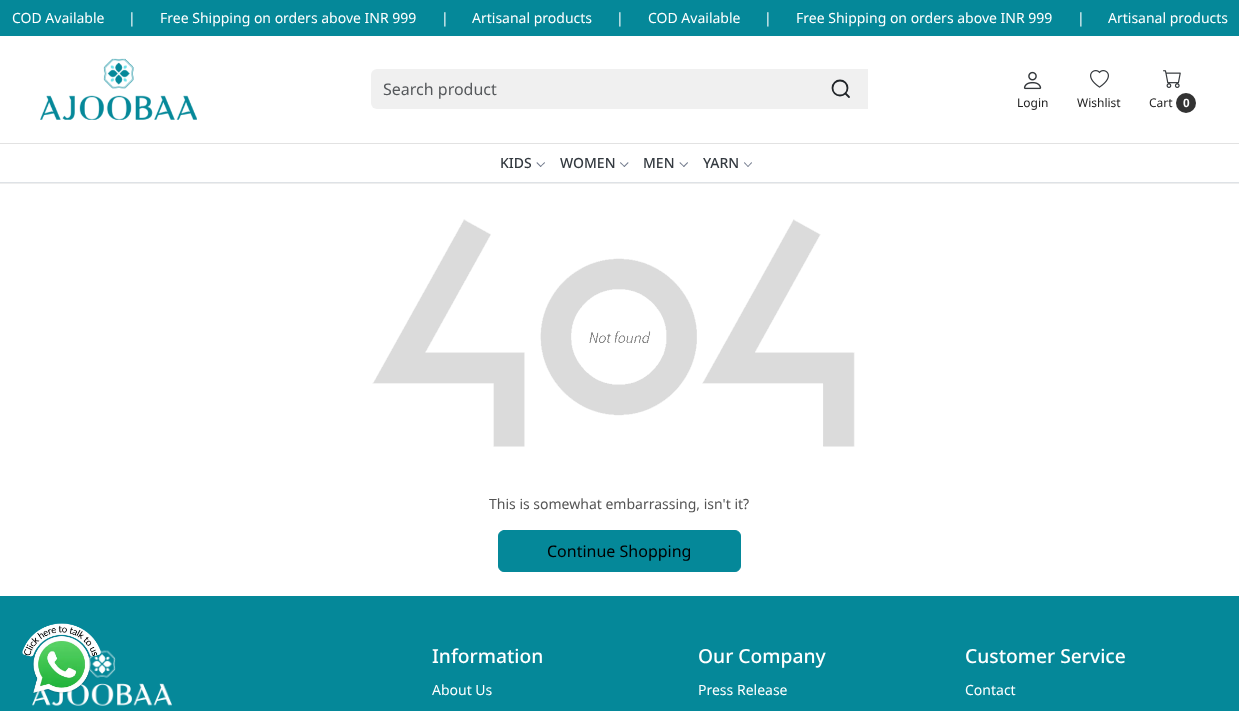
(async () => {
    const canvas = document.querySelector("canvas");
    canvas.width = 1239;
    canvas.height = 711;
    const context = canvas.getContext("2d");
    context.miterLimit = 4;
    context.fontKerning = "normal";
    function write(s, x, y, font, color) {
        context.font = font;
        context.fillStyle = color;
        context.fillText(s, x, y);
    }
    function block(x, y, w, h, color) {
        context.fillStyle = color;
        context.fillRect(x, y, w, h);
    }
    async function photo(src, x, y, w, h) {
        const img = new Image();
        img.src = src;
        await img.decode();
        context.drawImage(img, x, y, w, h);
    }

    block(0, 0, 1239, 711, "rgb(255, 255, 255)");
    block(0, 0, 1239, 36, "rgb(5, 136, 153)");
    write("COD Available", 12, 23, "14px Noto Sans", "rgb(255, 255, 255)");
    write("|", 128, 23, "14px Noto Sans", "rgb(255, 255, 255)");
    write("Free Shipping on orders above INR 999", 160, 23, "14px Noto Sans", "rgb(255, 255, 255)");
    write("|", 441, 23, "14px Noto Sans", "rgb(255, 255, 255)");
    write("Artisanal products", 472, 23, "14px Noto Sans", "rgb(255, 255, 255)");
    write("|", 616, 23, "14px Noto Sans", "rgb(255, 255, 255)");
    write("COD Available", 648, 23, "14px Noto Sans", "rgb(255, 255, 255)");
    write("|", 764, 23, "14px Noto Sans", "rgb(255, 255, 255)");
    write("Free Shipping on orders above INR 999", 796, 23, "14px Noto Sans", "rgb(255, 255, 255)");
    write("|", 1077, 23, "14px Noto Sans", "rgb(255, 255, 255)");
    write("Artisanal products", 1108, 23, "14px Noto Sans", "rgb(255, 255, 255)");
    block(0, 183, 1239, 1, "rgb(238, 238, 238)");
    await photo("media/1.png", 40, 58, 157, 62);
    context.fillStyle = "rgb(240, 240, 240)";
    context.beginPath();
    context.roundRect(371, 69, 497, 40, [6, 0, 0, 6]);
    context.fill();
    write("Search product", 383, 95, "16px Noto Sans", "rgb(85, 88, 91)");
    context.beginPath();
    context.arc(840, 88, 7.5, 0, Math.PI * 2);
    context.strokeStyle = "rgb(33, 37, 41)";
    context.lineWidth = 1.8;
    context.stroke();
    context.beginPath();
    context.moveTo(849, 97);
    context.lineTo(845.5, 93.5);
    context.lineCap = "round";
    context.lineJoin = "round";
    context.stroke();
    await photo("media/2.png", 1023, 71, 19, 19);
    write("Login", 1017, 107, "12px Noto Sans", "rgb(33, 33, 33)");
    await photo("media/3.png", 1090, 70, 19, 18);
    write("Wishlist", 1077, 107, "12px Noto Sans", "rgb(33, 33, 33)");
    await photo("media/4.png", 1163, 70, 18, 18);
    write("Cart", 1149, 107, "12px Noto Sans", "rgb(33, 33, 33)");
    context.fillStyle = "rgb(51, 51, 51)";
    context.beginPath();
    context.arc(1186, 103, 10, 0, Math.PI * 2);
    context.fill();
    write("0", 1183, 107, "bold 12px Liberation Sans", "rgb(255, 255, 255)");
    block(0, 182, 1239, 1, "rgb(222, 226, 230)");
    block(0, 143, 1239, 1, "rgb(226, 226, 226)");
    write("KIDS", 500, 168, "500 14px Noto Sans", "rgb(52, 58, 64)");
    context.fillStyle = "rgb(112, 121, 139)";
    context.beginPath();
    context.moveTo(544.5, 162);
    context.lineTo(545, 163);
    context.lineTo(540.5, 167);
    context.lineTo(540, 166.5);
    context.closePath();
    context.fill();
    context.beginPath();
    context.moveTo(537, 162);
    context.lineTo(541.5, 166.5);
    context.lineTo(540.5, 167);
    context.lineTo(536.5, 163);
    context.closePath();
    context.fill();
    write("WOMEN", 560, 168, "500 14px Noto Sans", "rgb(52, 58, 64)");
    context.fillStyle = "rgb(112, 121, 139)";
    context.beginPath();
    context.moveTo(628, 162);
    context.lineTo(628.5, 163);
    context.lineTo(624.5, 167);
    context.lineTo(623.5, 166.5);
    context.closePath();
    context.fill();
    context.beginPath();
    context.moveTo(620.5, 162);
    context.lineTo(625, 166.5);
    context.lineTo(624.5, 167);
    context.lineTo(620, 163);
    context.closePath();
    context.fill();
    write("MEN", 643, 168, "500 14px Noto Sans", "rgb(52, 58, 64)");
    context.fillStyle = "rgb(112, 121, 139)";
    context.beginPath();
    context.moveTo(687.5, 162);
    context.lineTo(688, 163);
    context.lineTo(684, 167);
    context.lineTo(683, 166.5);
    context.closePath();
    context.fill();
    context.beginPath();
    context.moveTo(680, 162);
    context.lineTo(684.5, 166.5);
    context.lineTo(684, 167);
    context.lineTo(679.5, 163);
    context.closePath();
    context.fill();
    write("YARN", 703, 168, "500 14px Noto Sans", "rgb(52, 58, 64)");
    context.fillStyle = "rgb(112, 121, 139)";
    context.beginPath();
    context.moveTo(751.5, 162);
    context.lineTo(752, 163);
    context.lineTo(748, 167);
    context.lineTo(747.5, 166.5);
    context.closePath();
    context.fill();
    context.beginPath();
    context.moveTo(744.5, 162);
    context.lineTo(748.5, 166.5);
    context.lineTo(748, 167);
    context.lineTo(744, 163);
    context.closePath();
    context.fill();
    await photo("media/5.png", 372, 219, 483, 228);
    write("This is somewhat embarrassing, isn't it?", 489, 509, "14px Noto Sans", "rgb(84, 84, 84)");
    context.fillStyle = "rgb(5, 136, 153)";
    context.beginPath();
    context.roundRect(498.5, 530.5, 242, 41, 5.5);
    context.fill();
    context.strokeStyle = "rgb(5, 136, 153)";
    context.lineWidth = 1;
    context.lineJoin = "miter";
    context.stroke();
    write("Continue Shopping", 547, 557, "16px Noto Sans", "rgb(0, 0, 0)");
    block(0, 596, 1239, 115, "rgb(5, 136, 153)");
    await photo("media/7.png", 32, 650, 140, 56);
    await photo("media/6.png", 22, 623, 79, 71);
    write("Information", 432, 663, "500 19.25px Noto Sans", "rgb(255, 255, 255)");
    write("About Us", 432, 695, "14px Noto Sans", "rgb(255, 255, 255)");
    write("Our Company", 698, 663, "500 19.25px Noto Sans", "rgb(255, 255, 255)");
    write("Press Release", 698, 695, "14px Noto Sans", "rgb(255, 255, 255)");
    write("Customer Service", 965, 663, "500 19.25px Noto Sans", "rgb(255, 255, 255)");
    write("Contact", 965, 695, "14px Noto Sans", "rgb(255, 255, 255)");
})();
